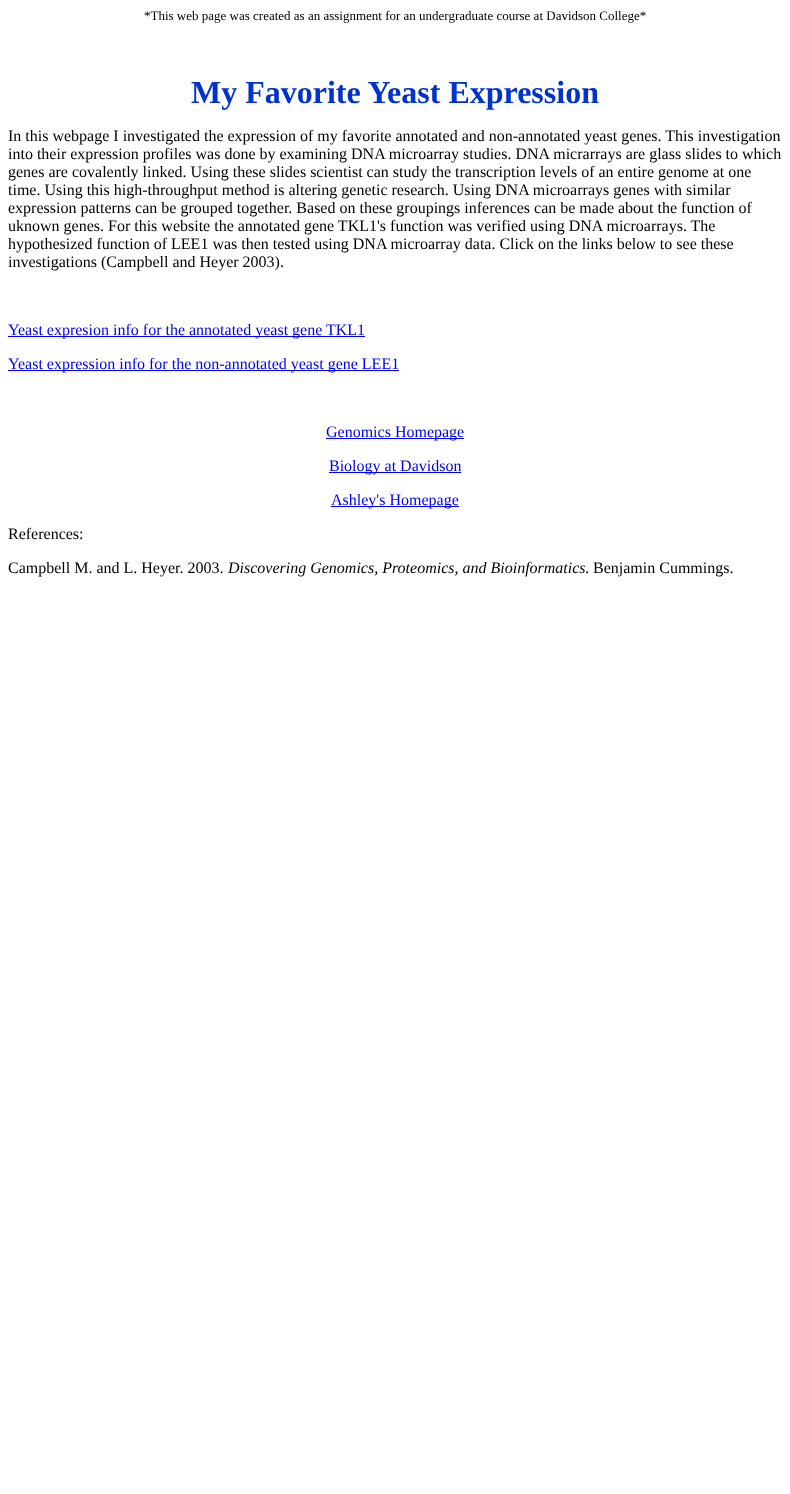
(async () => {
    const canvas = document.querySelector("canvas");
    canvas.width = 790;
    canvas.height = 1494;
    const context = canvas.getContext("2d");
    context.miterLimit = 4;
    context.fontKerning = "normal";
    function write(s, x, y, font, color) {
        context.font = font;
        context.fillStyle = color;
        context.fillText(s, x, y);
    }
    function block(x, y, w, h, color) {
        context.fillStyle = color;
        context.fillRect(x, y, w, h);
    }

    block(0, 0, 790, 1494, "rgb(255, 255, 255)");
    write("*This web page was created as an assignment for an undergraduate course at Davidson College*", 144, 20, "13px Liberation Serif", "rgb(0, 0, 0)");
    write("My Favorite Yeast Expression", 191, 103, "bold 32px Liberation Serif", "rgb(0, 51, 204)");
    write("In this webpage I investigated the expression of my favorite annotated and non-annotated yeast genes. This investigation", 8, 141, "16px Liberation Serif", "rgb(0, 0, 0)");
    write("into their expression profiles was done by examining DNA microarray studies. DNA micrarrays are glass slides to which", 8, 159, "16px Liberation Serif", "rgb(0, 0, 0)");
    write("genes are covalently linked. Using these slides scientist can study the transcription levels of an entire genome at one", 8, 177, "16px Liberation Serif", "rgb(0, 0, 0)");
    write("time. Using this high-throughput method is altering genetic research. Using DNA microarrays genes with similar", 8, 195, "16px Liberation Serif", "rgb(0, 0, 0)");
    write("expression patterns can be grouped together. Based on these groupings inferences can be made about the function of", 8, 213, "16px Liberation Serif", "rgb(0, 0, 0)");
    write("uknown genes. For this website the annotated gene TKL1's function was verified using DNA microarrays. The", 8, 231, "16px Liberation Serif", "rgb(0, 0, 0)");
    write("hypothesized function of LEE1 was then tested using DNA microarray data. Click on the links below to see these", 8, 249, "16px Liberation Serif", "rgb(0, 0, 0)");
    write("investigations (Campbell and Heyer 2003).", 8, 267, "16px Liberation Serif", "rgb(0, 0, 0)");
    block(8, 336, 357, 1, "rgb(0, 0, 238)");
    write("Yeast expresion info for the annotated yeast gene TKL1", 8, 335, "16px Liberation Serif", "rgb(0, 0, 238)");
    block(8, 370, 391, 1, "rgb(0, 0, 238)");
    write("Yeast expression info for the non-annotated yeast gene LEE1", 8, 369, "16px Liberation Serif", "rgb(0, 0, 238)");
    block(326, 438, 138, 1, "rgb(0, 0, 238)");
    write("Genomics Homepage", 326, 437, "16px Liberation Serif", "rgb(0, 0, 238)");
    block(329, 472, 132, 1, "rgb(0, 0, 238)");
    write("Biology at Davidson", 329, 471, "16px Liberation Serif", "rgb(0, 0, 238)");
    block(331, 506, 128, 1, "rgb(0, 0, 238)");
    write("Ashley's Homepage", 331, 505, "16px Liberation Serif", "rgb(0, 0, 238)");
    write("References:", 8, 539, "16px Liberation Serif", "rgb(0, 0, 0)");
    write("Campbell M. and L. Heyer. 2003.", 8, 573, "16px Liberation Serif", "rgb(0, 0, 0)");
    write("Discovering Genomics, Proteomics, and Bioinformatics.", 228, 573, "italic 16px Liberation Serif", "rgb(0, 0, 0)");
    write("Benjamin Cummings.", 593, 573, "16px Liberation Serif", "rgb(0, 0, 0)");
})();
